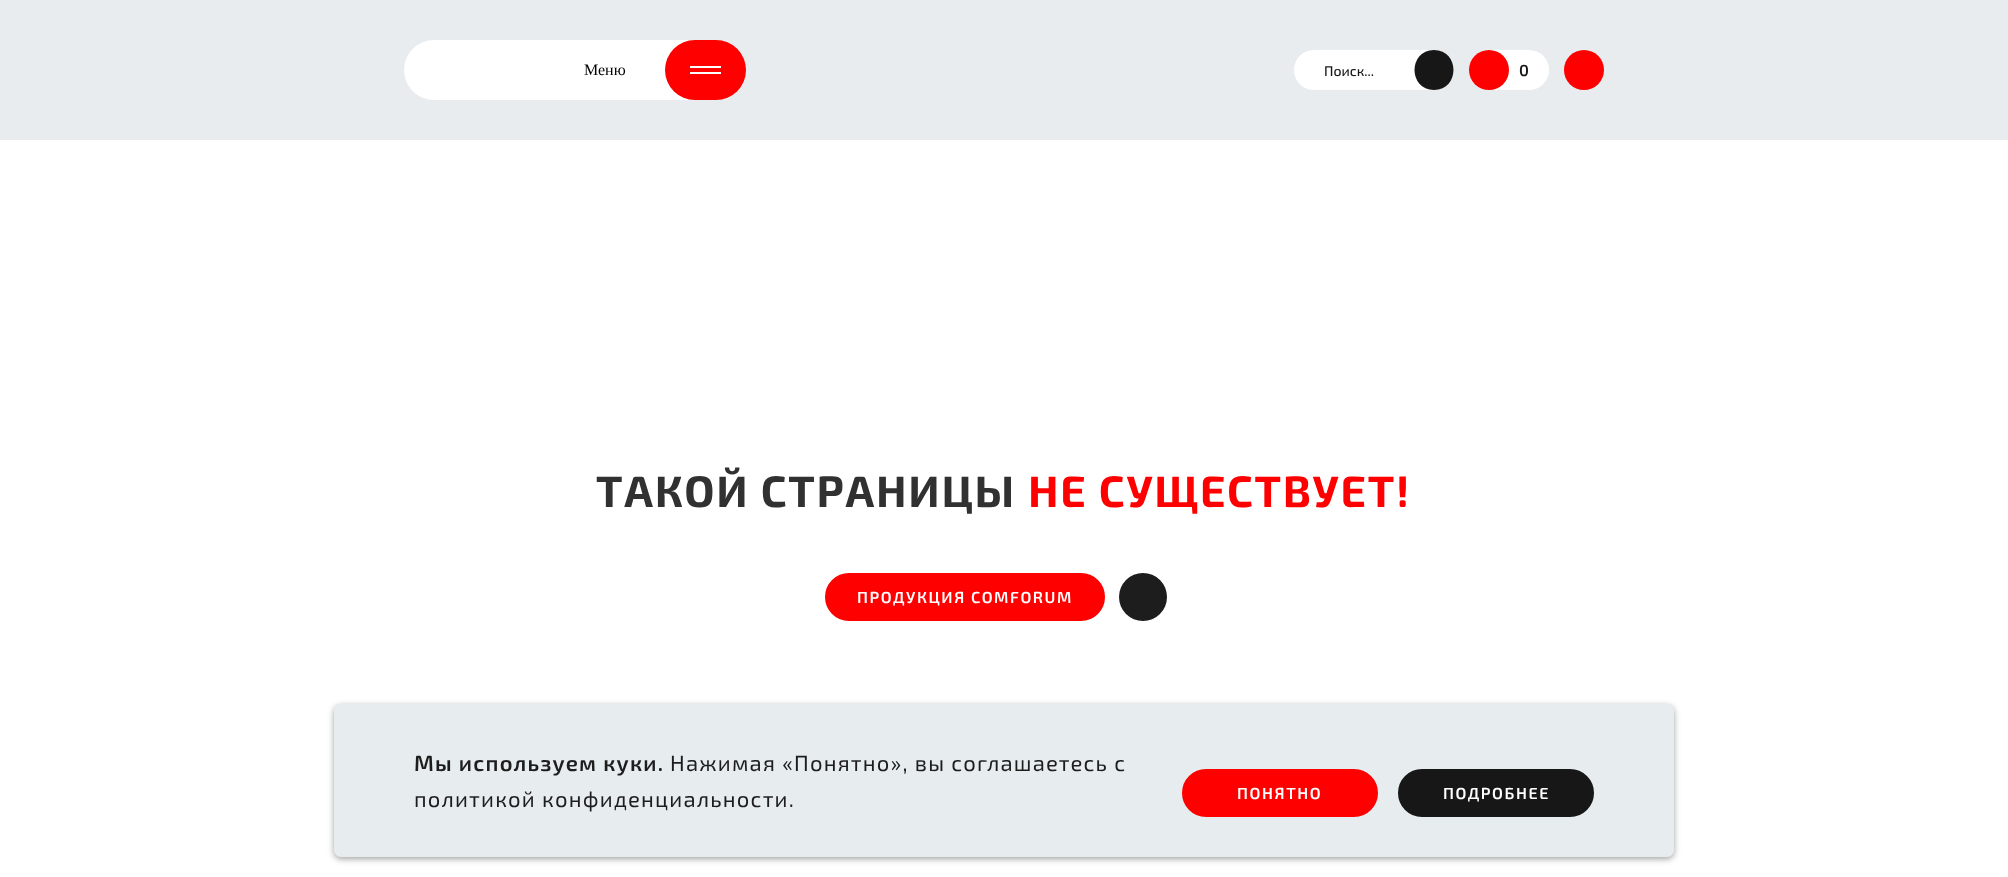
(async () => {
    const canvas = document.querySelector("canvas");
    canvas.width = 2008;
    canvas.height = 877;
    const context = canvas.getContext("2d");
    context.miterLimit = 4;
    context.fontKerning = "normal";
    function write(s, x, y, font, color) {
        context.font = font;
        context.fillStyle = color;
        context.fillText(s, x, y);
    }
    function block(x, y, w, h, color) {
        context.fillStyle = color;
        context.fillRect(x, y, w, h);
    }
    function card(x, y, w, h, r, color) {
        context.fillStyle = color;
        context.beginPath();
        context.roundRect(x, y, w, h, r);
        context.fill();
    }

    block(0, 0, 2008, 877, "rgb(255, 255, 255)");
    block(0, 0, 2008, 140, "rgb(232, 236, 239)");
    card(404, 40, 340, 60, 30, "rgb(255, 255, 255)");
    write("Меню", 584, 75, "16px Liberation Serif", "rgb(0, 0, 0)");
    card(665, 40, 81, 60, 30, "rgb(254, 0, 0)");
    block(690, 66, 31, 2, "rgb(255, 255, 255)");
    block(690, 72, 31, 2, "rgb(255, 255, 255)");
    card(1294, 50, 160, 40, 20, "rgb(255, 255, 255)");
    write("Поиск...", 1324, 76, "500 14px 'Exo 2'", "rgb(23, 23, 23)");
    context.beginPath();
    context.moveTo(1434, 50);
    context.bezierCurveTo(1408, 50, 1408, 90, 1434, 90);
    context.bezierCurveTo(1460, 90, 1460, 50, 1434, 50);
    context.closePath();
    context.fill();
    card(1469, 50, 80, 40, 20, "rgb(255, 255, 255)");
    context.fillStyle = "rgb(254, 0, 0)";
    context.beginPath();
    context.arc(1489, 70, 20, 0, Math.PI * 2);
    context.fill();
    write("0", 1519, 76, "600 16px 'Exo 2'", "rgb(23, 23, 23)");
    context.fillStyle = "rgb(254, 0, 0)";
    context.beginPath();
    context.arc(1584, 70, 20, 0, Math.PI * 2);
    context.fill();
    context.letterSpacing = "1.75px";
    write("ТАКОЙ СТРАНИЦЫ", 596, 507, "bold 44px 'Exo 2'", "rgb(49, 49, 50)");
    write("НЕ СУЩЕСТВУЕТ!", 1028, 507, "bold 44px 'Exo 2'", "rgb(254, 0, 0)");
    context.beginPath();
    context.roundRect(826, 574, 278, 46, 23);
    context.fill();
    context.strokeStyle = "rgb(254, 0, 0)";
    context.lineWidth = 2;
    context.stroke();
    context.letterSpacing = "1.6px";
    write("ПРОДУКЦИЯ COMFORUM", 857, 603, "600 16px 'Exo 2'", "rgb(255, 255, 255)");
    context.fillStyle = "rgb(29, 29, 29)";
    context.beginPath();
    context.arc(1143, 597, 24, 0, Math.PI * 2);
    context.fill();
    context.fillStyle = "rgba(49, 49, 50, 0.45)";
    context.filter = "blur(3px)";
    context.beginPath();
    context.roundRect(334, 706, 1340, 153, 7);
    context.fill();
    context.filter = "none";
    card(334, 704, 1340, 153, 7, "rgb(231, 236, 239)");
    context.letterSpacing = "1.2px";
    write("Мы используем куки.", 414, 771, "600 22px 'Exo 2'", "rgb(29, 29, 29)");
    write("Нажимая «Понятно», вы соглашаетесь с", 670, 771, "22px 'Exo 2'", "rgb(29, 29, 29)");
    write("политикой конфиденциальности.", 414, 807, "22px 'Exo 2'", "rgb(29, 29, 29)");
    context.fillStyle = "rgb(254, 0, 0)";
    context.beginPath();
    context.roundRect(1183, 770, 194, 46, 23);
    context.fill();
    context.stroke();
    context.letterSpacing = "1.6px";
    write("ПОНЯТНО", 1237, 799, "600 16px 'Exo 2'", "rgb(255, 255, 255)");
    context.fillStyle = "rgb(23, 23, 23)";
    context.beginPath();
    context.roundRect(1399, 770, 194, 46, 23);
    context.fill();
    context.strokeStyle = "rgb(23, 23, 23)";
    context.stroke();
    write("ПОДРОБНЕЕ", 1443, 799, "600 16px 'Exo 2'", "rgb(255, 255, 255)");
})();
